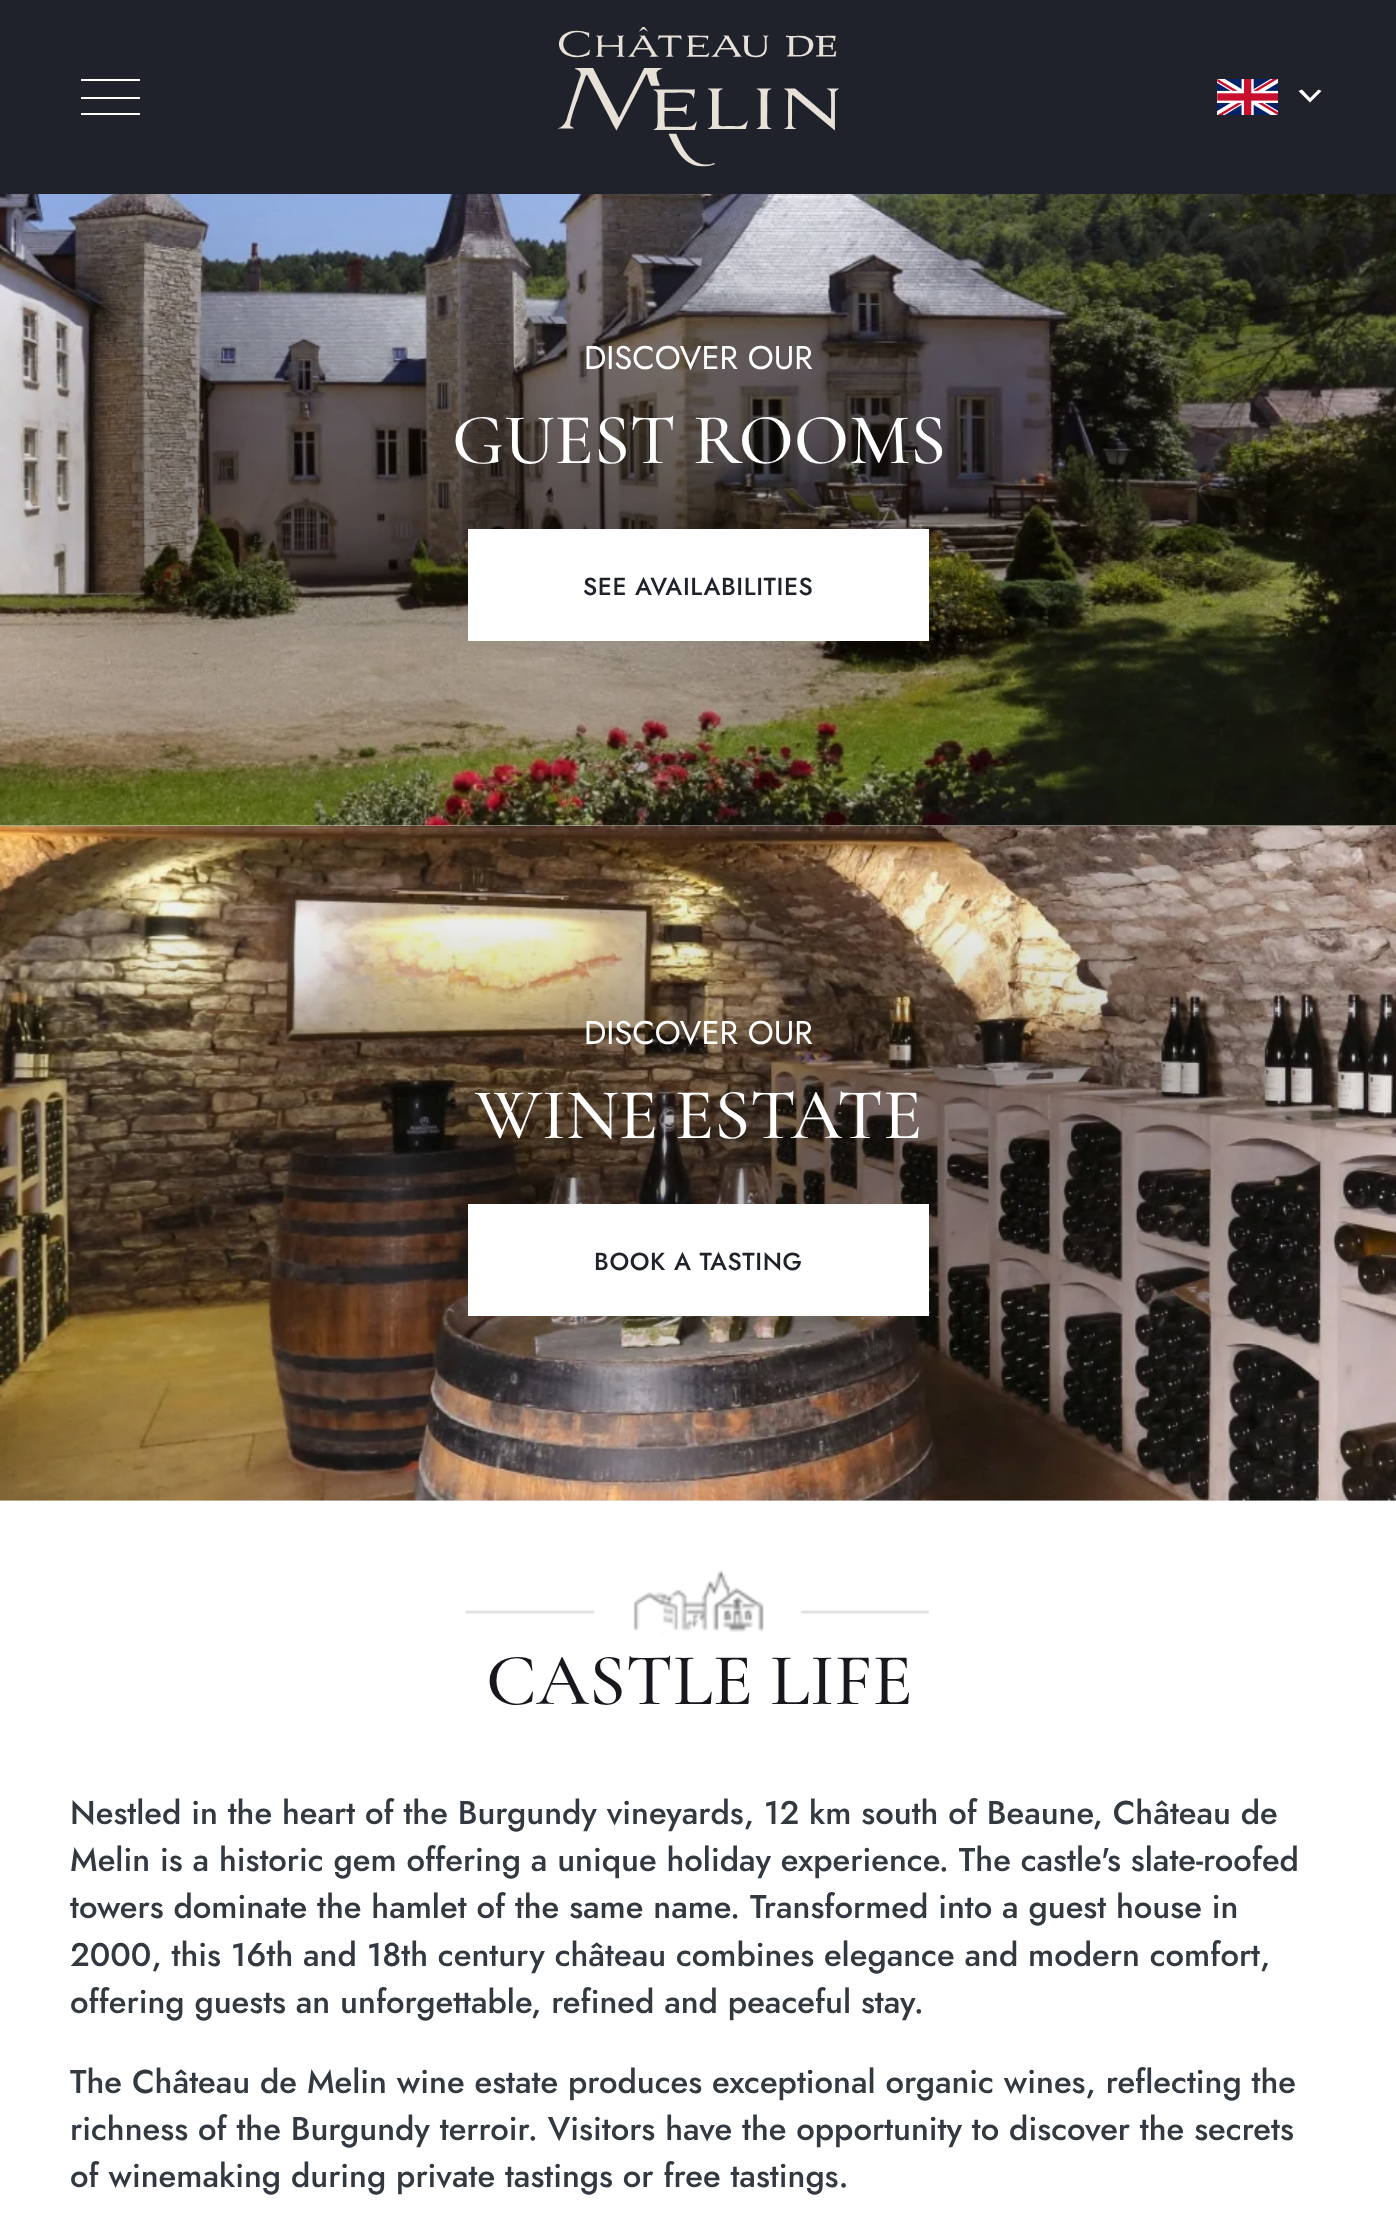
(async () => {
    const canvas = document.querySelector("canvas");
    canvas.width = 1396;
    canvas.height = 2228;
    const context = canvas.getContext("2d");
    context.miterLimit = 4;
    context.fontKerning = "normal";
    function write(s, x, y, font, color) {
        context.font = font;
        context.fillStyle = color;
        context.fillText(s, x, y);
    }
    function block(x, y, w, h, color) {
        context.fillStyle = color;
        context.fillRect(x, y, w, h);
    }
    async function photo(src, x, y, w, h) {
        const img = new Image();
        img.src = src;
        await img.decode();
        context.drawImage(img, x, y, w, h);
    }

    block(0, 0, 1396, 2228, "rgb(255, 255, 255)");
    await photo("media/3.png", 0, 194, 1396, 632);
    await photo("media/4.png", 0, 825, 1396, 676);
    context.save();
    context.beginPath();
    context.rect(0, 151, 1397, 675);
    context.clip();
    context.fillStyle = "rgba(0, 0, 0, 0.3)";
    context.filter = "blur(112.5px)";
    context.beginPath();
    context.rect(70, 320, 1258, 337);
    context.fill();
    context.filter = "none";
    context.restore();
    block(0, 0, 1396, 194, "rgb(31, 34, 42)");
    block(81, 79, 59, 2, "rgb(255, 255, 255)");
    block(81, 97, 59, 2, "rgb(255, 255, 255)");
    block(81, 113, 59, 2, "rgb(255, 255, 255)");
    await photo("media/1.png", 558, 27, 281, 140);
    await photo("media/2.png", 1217, 79, 61, 36);
    context.beginPath();
    context.moveTo(1302, 89.5);
    context.lineTo(1310, 98);
    context.lineTo(1318.5, 89.5);
    context.lineTo(1321.5, 91);
    context.lineTo(1310, 102.5);
    context.lineTo(1298.5, 91);
    context.closePath();
    context.fill();
    write("DISCOVER OUR", 584, 369, "32.85px Jost", "rgb(255, 255, 255)");
    write("GUEST ROOMS", 452, 463, "500 72.25px Cormorant Garamond", "rgb(255, 255, 255)");
    block(468, 529, 461, 112, "rgb(255, 255, 255)");
    context.letterSpacing = "0.6px";
    write("SEE AVAILABILITIES", 583, 595, "500 24.6px Jost", "rgb(31, 34, 42)");
    context.save();
    context.beginPath();
    context.rect(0, 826, 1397, 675);
    context.clip();
    context.fillStyle = "rgba(0, 0, 0, 0.3)";
    context.filter = "blur(112.5px)";
    context.beginPath();
    context.rect(70, 995, 1258, 337);
    context.fill();
    context.filter = "none";
    context.restore();
    context.letterSpacing = "0px";
    write("DISCOVER OUR", 584, 1044, "32.85px Jost", "rgb(255, 255, 255)");
    write("WINE ESTATE", 475, 1138, "500 72.25px Cormorant Garamond", "rgb(255, 255, 255)");
    block(468, 1204, 461, 112, "rgb(255, 255, 255)");
    context.letterSpacing = "0.6px";
    write("BOOK A TASTING", 594, 1270, "500 24.6px Jost", "rgb(31, 34, 42)");
    await photo("media/5.png", 465, 1570, 465, 63);
    context.letterSpacing = "0px";
    write("CASTLE LIFE", 486, 1704, "500 74px Cormorant Garamond", "rgb(23, 24, 30)");
    write("Nestled in the heart of the Burgundy vineyards, 12 km south of Beaune, Château de", 70, 1824, "500 32.85px Jost", "rgb(50, 57, 65)");
    write("Melin is a historic gem offering a unique holiday experience. The castle's slate-roofed", 70, 1871, "500 32.85px Jost", "rgb(50, 57, 65)");
    write("towers dominate the hamlet of the same name. Transformed into a guest house in", 70, 1918, "500 32.85px Jost", "rgb(50, 57, 65)");
    write("2000, this 16th and 18th century château combines elegance and modern comfort,", 70, 1966, "500 32.85px Jost", "rgb(50, 57, 65)");
    write("offering guests an unforgettable, refined and peaceful stay.", 70, 2013, "500 32.85px Jost", "rgb(50, 57, 65)");
    write("The Château de Melin wine estate produces exceptional organic wines, reflecting the", 70, 2093, "500 32.85px Jost", "rgb(50, 57, 65)");
    write("richness of the Burgundy terroir. Visitors have the opportunity to discover the secrets", 70, 2140, "500 32.85px Jost", "rgb(50, 57, 65)");
    write("of winemaking during private tastings or free tastings.", 70, 2187, "500 32.85px Jost", "rgb(50, 57, 65)");
})();
